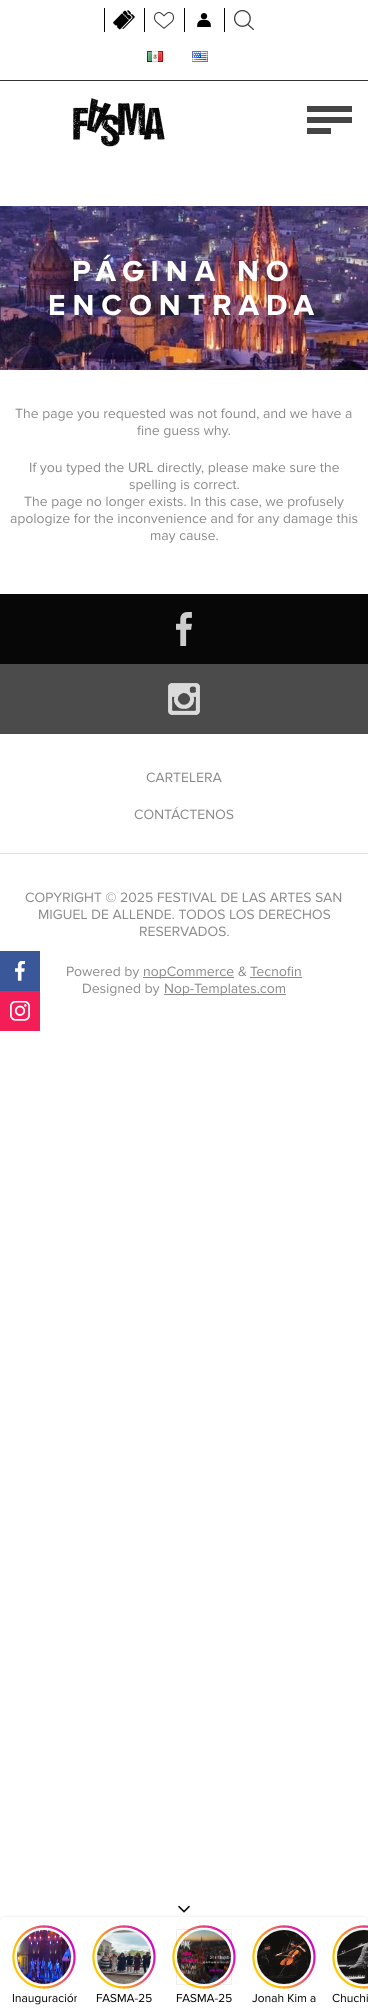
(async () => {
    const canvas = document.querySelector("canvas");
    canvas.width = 368;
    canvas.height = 2013;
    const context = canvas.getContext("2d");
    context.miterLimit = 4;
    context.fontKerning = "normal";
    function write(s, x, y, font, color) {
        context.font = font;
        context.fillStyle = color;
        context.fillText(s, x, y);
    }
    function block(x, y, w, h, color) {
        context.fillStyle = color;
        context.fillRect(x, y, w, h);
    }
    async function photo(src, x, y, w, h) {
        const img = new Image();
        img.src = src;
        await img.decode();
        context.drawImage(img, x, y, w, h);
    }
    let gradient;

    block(0, 0, 368, 2013, "rgb(255, 255, 255)");
    block(0, 80, 368, 1, "rgb(51, 51, 51)");
    block(104, 8, 1, 24, "rgb(6, 6, 6)");
    await photo("media/1.png", 113, 10, 22, 20);
    block(144, 8, 1, 24, "rgb(6, 6, 6)");
    await photo("media/2.png", 154, 12, 20, 17);
    await photo("media/3.png", 197, 13, 14, 14);
    block(184, 8, 1, 24, "rgb(6, 6, 6)");
    await photo("media/4.png", 234, 10, 20, 20);
    block(224, 8, 1, 24, "rgb(6, 6, 6)");
    await photo("media/5.png", 147, 51, 16, 11);
    await photo("media/6.png", 192, 51, 16, 11);
    await photo("media/7.png", 73, 98, 92, 49);
    await photo("media/8.png", 307, 106, 45, 28);
    await photo("media/9.png", 0, 206, 368, 164);
    context.letterSpacing = "7px";
    write("PÁGINA NO", 72, 281, "bold 30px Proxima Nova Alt", "rgb(255, 255, 255)");
    write("ENCONTRADA", 48, 315, "bold 30px Proxima Nova Alt", "rgb(255, 255, 255)");
    await photo("media/10.png", 15, 408, 337, 13);
    await photo("media/11.png", 137, 425, 93, 13);
    await photo("media/12.png", 30, 462, 309, 13);
    await photo("media/13.png", 129, 479, 110, 13);
    await photo("media/14.png", 24, 496, 320, 13);
    await photo("media/15.png", 10, 513, 348, 13);
    await photo("media/16.png", 151, 533, 67, 10);
    block(0, 594, 368, 70, "rgb(7, 7, 7)");
    await photo("media/17.png", 176, 612, 16, 34);
    block(0, 664, 368, 70, "rgb(75, 75, 75)");
    await photo("media/18.png", 168, 683, 32, 32);
    block(0, 853, 368, 1, "rgb(225, 225, 225)");
    await photo("media/19.png", 146, 772, 76, 11);
    await photo("media/20.png", 134, 806, 100, 14);
    await photo("media/21.png", 25, 892, 317, 11);
    await photo("media/22.png", 39, 909, 292, 11);
    await photo("media/23.png", 140, 926, 89, 11);
    await photo("media/24.png", 67, 966, 73, 13);
    block(143, 977, 91, 1, "rgb(137, 137, 137)");
    await photo("media/25.png", 144, 966, 90, 13);
    await photo("media/26.png", 238, 966, 9, 11);
    await photo("media/27.png", 250, 966, 51, 11);
    block(250, 977, 52, 1, "rgb(137, 137, 137)");
    await photo("media/28.png", 83, 983, 77, 13);
    block(164, 994, 122, 1, "rgb(137, 137, 137)");
    await photo("media/29.png", 165, 983, 120, 13);
    block(0, 951, 40, 40, "rgb(58, 87, 154)");
    await photo("media/30.png", 15, 961, 10, 20);
    block(0, 991, 40, 40, "rgb(243, 30, 88)");
    await photo("media/31.png", 10, 1001, 20, 20);
    context.save();
    context.beginPath();
    context.moveTo(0, 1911);
    context.lineTo(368, 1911);
    context.lineTo(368, 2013);
    context.lineTo(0, 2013);
    context.closePath();
    context.moveTo(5, 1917);
    context.lineTo(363, 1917);
    context.bezierCurveTo(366, 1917, 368, 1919, 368, 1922);
    context.lineTo(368, 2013);
    context.lineTo(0, 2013);
    context.lineTo(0, 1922);
    context.bezierCurveTo(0, 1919, 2, 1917, 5, 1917);
    context.closePath();
    context.clip("evenodd");
    context.fillStyle = "rgba(60, 72, 88, 0.15)";
    context.filter = "blur(1.5px)";
    context.beginPath();
    context.roundRect(0, 1917, 368, 96, 5);
    context.fill();
    context.filter = "none";
    context.restore();
    context.fillStyle = "rgb(255, 255, 255)";
    context.beginPath();
    context.moveTo(149, 1900);
    context.lineTo(219, 1900);
    context.bezierCurveTo(222, 1900, 224, 1902, 224, 1905);
    context.lineTo(224, 1916);
    context.lineTo(144, 1916);
    context.bezierCurveTo(144, 1912, 142, 1900, 149, 1900);
    context.closePath();
    context.moveTo(149, 1901);
    context.lineTo(219, 1901);
    context.bezierCurveTo(221, 1901, 223, 1903, 223, 1905);
    context.lineTo(223, 1916);
    context.lineTo(145, 1916);
    context.bezierCurveTo(145, 1912, 143, 1901, 149, 1901);
    context.closePath();
    context.fill("evenodd");
    await photo("media/32.png", 178, 1905, 12, 8);
    context.beginPath();
    context.moveTo(44, 1926.5);
    context.bezierCurveTo(61, 1926.5, 74.5, 1940, 74.5, 1957);
    context.bezierCurveTo(74.5, 1974, 61, 1987.5, 44, 1987.5);
    context.bezierCurveTo(27, 1987.5, 13.5, 1974, 13.5, 1957);
    context.bezierCurveTo(13.5, 1940, 27, 1926.5, 44, 1926.5);
    context.closePath();
    gradient = context.createLinearGradient(20, 1957, 68, 1933);
    gradient.addColorStop(0, "rgb(255, 198, 0)");
    gradient.addColorStop(1, "rgb(211, 0, 197)");
    context.strokeStyle = gradient;
    context.lineWidth = 2.3;
    context.lineCap = "round";
    context.setLineDash([0.76, 0.76]);
    context.stroke();
    context.beginPath();
    context.arc(44, 1957, 27.5, 0, Math.PI * 2);
    context.strokeStyle = "rgb(239, 239, 239)";
    context.lineWidth = 1;
    context.setLineDash([]);
    context.stroke();
    await photo("media/33.png", 17, 1930, 54, 54);
    await photo("media/34.png", 12, 1993, 65, 12);
    context.beginPath();
    context.moveTo(124, 1926.5);
    context.bezierCurveTo(141, 1926.5, 154.5, 1940, 154.5, 1957);
    context.bezierCurveTo(154.5, 1974, 141, 1987.5, 124, 1987.5);
    context.bezierCurveTo(107, 1987.5, 93.5, 1974, 93.5, 1957);
    context.bezierCurveTo(93.5, 1940, 107, 1926.5, 124, 1926.5);
    context.closePath();
    gradient = context.createLinearGradient(100, 1957, 148, 1933);
    gradient.addColorStop(0, "rgb(255, 198, 0)");
    gradient.addColorStop(1, "rgb(211, 0, 197)");
    context.strokeStyle = gradient;
    context.lineWidth = 2.3;
    context.setLineDash([0.76, 0.76]);
    context.stroke();
    context.beginPath();
    context.arc(124, 1957, 27.5, 0, Math.PI * 2);
    context.strokeStyle = "rgb(239, 239, 239)";
    context.lineWidth = 1;
    context.setLineDash([]);
    context.stroke();
    await photo("media/35.png", 97, 1930, 54, 54);
    await photo("media/36.png", 96, 1993, 56, 10);
    context.beginPath();
    context.moveTo(204, 1926.5);
    context.bezierCurveTo(221, 1926.5, 234.5, 1940, 234.5, 1957);
    context.bezierCurveTo(234.5, 1974, 221, 1987.5, 204, 1987.5);
    context.bezierCurveTo(187, 1987.5, 173.5, 1974, 173.5, 1957);
    context.bezierCurveTo(173.5, 1940, 187, 1926.5, 204, 1926.5);
    context.closePath();
    gradient = context.createLinearGradient(180, 1957, 228, 1933);
    gradient.addColorStop(0, "rgb(255, 198, 0)");
    gradient.addColorStop(1, "rgb(211, 0, 197)");
    context.strokeStyle = gradient;
    context.lineWidth = 2.3;
    context.setLineDash([0.76, 0.76]);
    context.stroke();
    context.strokeStyle = "rgba(0, 0, 0, 0.06)";
    context.lineWidth = 1;
    context.setLineDash([]);
    context.strokeRect(176.5, 1929.5, 55, 55);
    await photo("media/37.png", 177, 1930, 54, 54);
    await photo("media/36.png", 176, 1993, 56, 10);
    context.beginPath();
    context.moveTo(284, 1926.5);
    context.bezierCurveTo(301, 1926.5, 314.5, 1940, 314.5, 1957);
    context.bezierCurveTo(314.5, 1974, 301, 1987.5, 284, 1987.5);
    context.bezierCurveTo(267, 1987.5, 253.5, 1974, 253.5, 1957);
    context.bezierCurveTo(253.5, 1940, 267, 1926.5, 284, 1926.5);
    context.closePath();
    gradient = context.createLinearGradient(260, 1957, 308, 1933);
    gradient.addColorStop(0, "rgb(255, 198, 0)");
    gradient.addColorStop(1, "rgb(211, 0, 197)");
    context.strokeStyle = gradient;
    context.lineWidth = 2.3;
    context.setLineDash([0.76, 0.76]);
    context.stroke();
    context.beginPath();
    context.arc(284, 1957, 27.5, 0, Math.PI * 2);
    context.strokeStyle = "rgb(239, 239, 239)";
    context.lineWidth = 1;
    context.setLineDash([]);
    context.stroke();
    await photo("media/38.png", 257, 1930, 54, 54);
    await photo("media/39.png", 252, 1994, 64, 9);
    context.beginPath();
    context.moveTo(364, 1926.5);
    context.bezierCurveTo(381, 1926.5, 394.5, 1940, 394.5, 1957);
    context.bezierCurveTo(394.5, 1974, 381, 1987.5, 364, 1987.5);
    context.bezierCurveTo(347, 1987.5, 333.5, 1974, 333.5, 1957);
    context.bezierCurveTo(333.5, 1940, 347, 1926.5, 364, 1926.5);
    context.closePath();
    gradient = context.createLinearGradient(340, 1957, 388, 1933);
    gradient.addColorStop(0, "rgb(255, 198, 0)");
    gradient.addColorStop(1, "rgb(211, 0, 197)");
    context.strokeStyle = gradient;
    context.lineWidth = 2.3;
    context.setLineDash([0.76, 0.76]);
    context.stroke();
    context.beginPath();
    context.arc(364, 1957, 27.5, 0, Math.PI * 2);
    context.strokeStyle = "rgb(239, 239, 239)";
    context.lineWidth = 1;
    context.setLineDash([]);
    context.stroke();
    await photo("media/40.png", 337, 1930, 31, 54);
    await photo("media/41.png", 332, 1993, 36, 10);
})();
